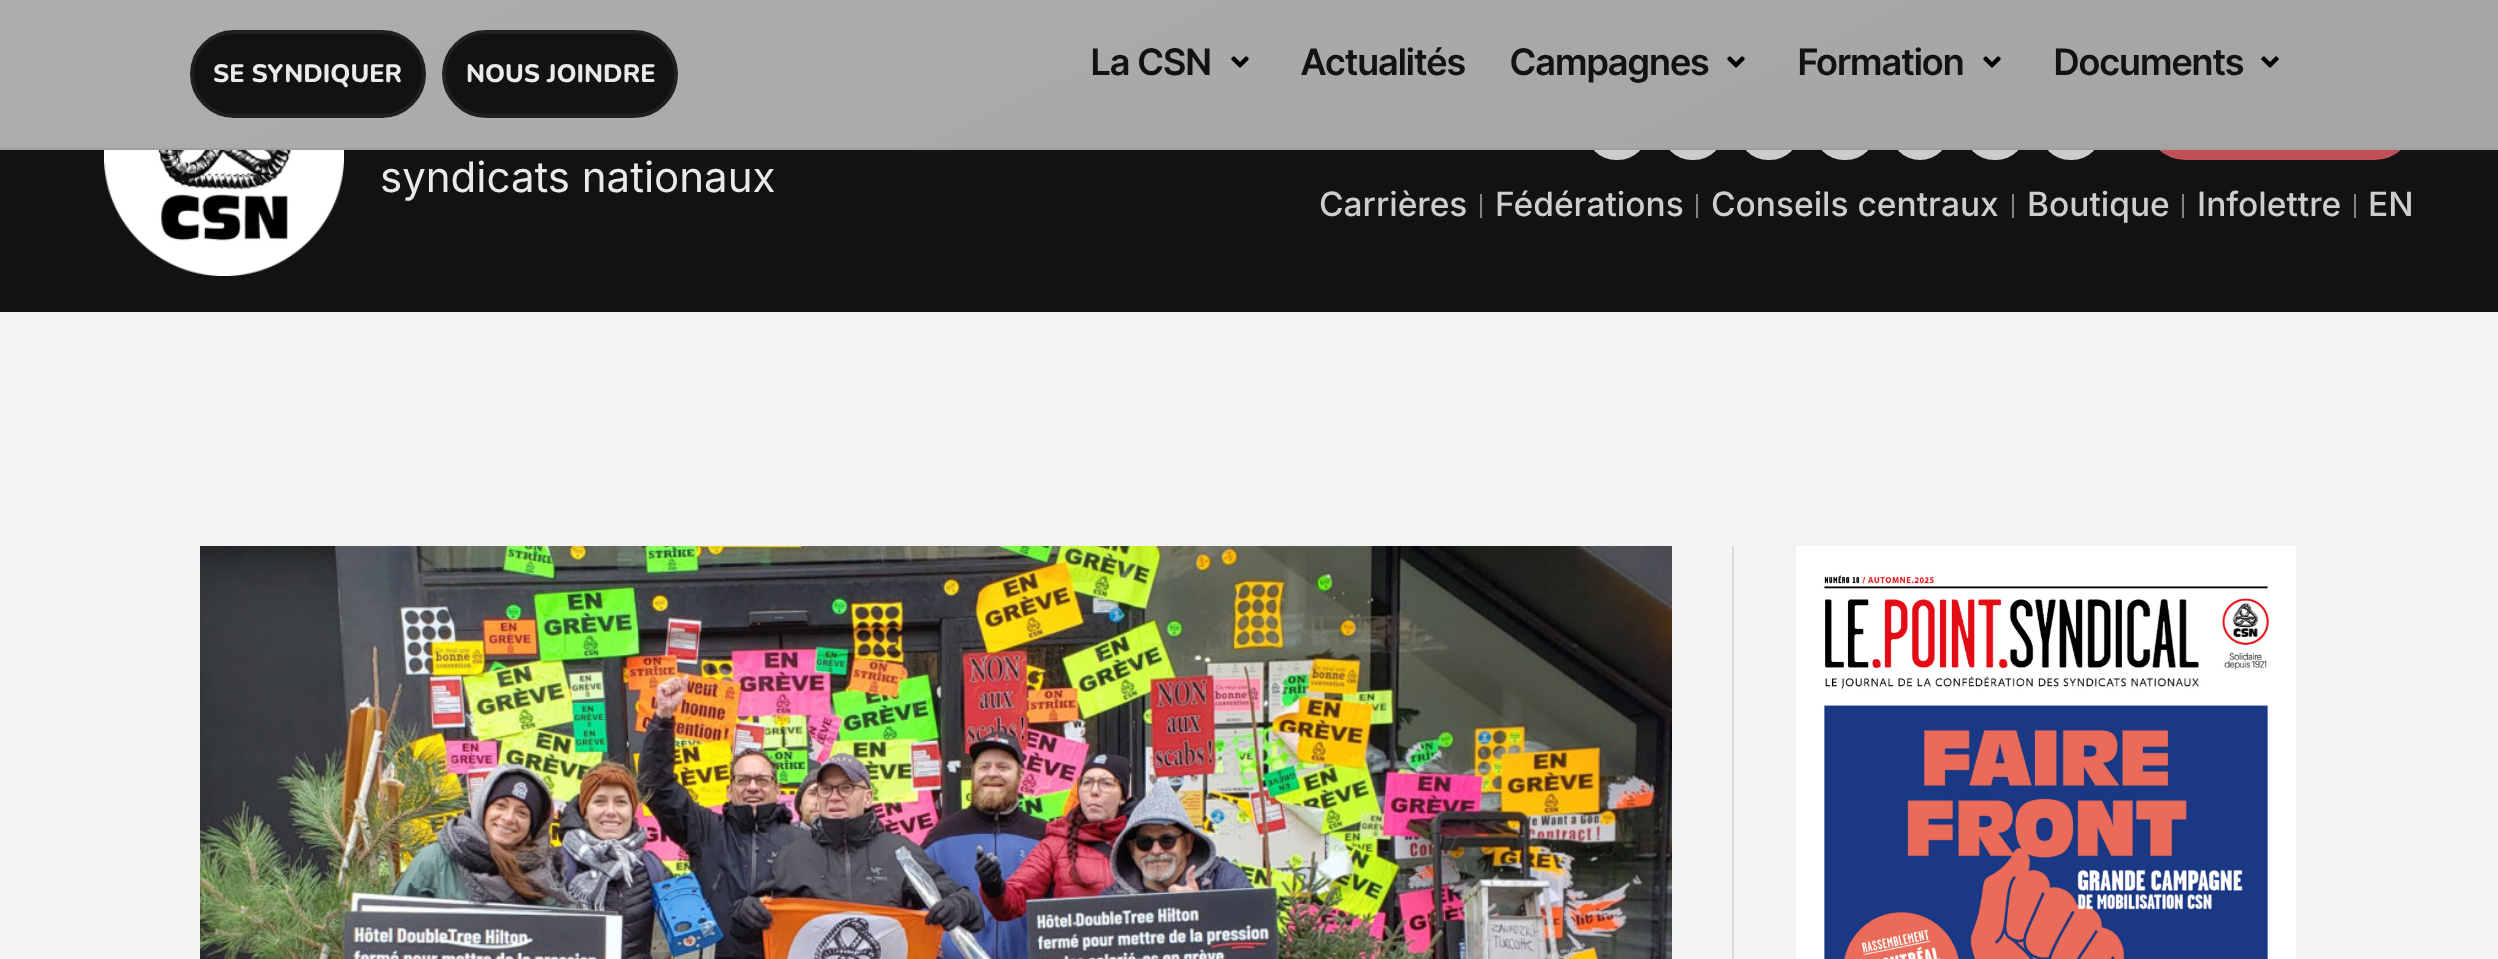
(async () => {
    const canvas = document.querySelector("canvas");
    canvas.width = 2498;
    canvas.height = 959;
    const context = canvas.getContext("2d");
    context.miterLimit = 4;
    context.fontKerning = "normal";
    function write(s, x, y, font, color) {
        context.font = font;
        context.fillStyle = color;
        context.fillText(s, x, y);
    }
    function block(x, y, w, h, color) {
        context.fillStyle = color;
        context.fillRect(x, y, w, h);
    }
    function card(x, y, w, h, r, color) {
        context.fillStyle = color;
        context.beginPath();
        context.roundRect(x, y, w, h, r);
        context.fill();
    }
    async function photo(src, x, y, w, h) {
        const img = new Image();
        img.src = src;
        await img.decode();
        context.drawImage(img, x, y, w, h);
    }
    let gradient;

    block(0, 0, 2498, 959, "rgb(243, 243, 243)");
    block(0, 150, 2498, 162, "rgb(18, 18, 18)");
    card(1586, 100, 62, 60, 30, "rgb(203, 203, 203)");
    card(1662, 100, 62, 60, 30, "rgb(203, 203, 203)");
    card(1738, 100, 62, 60, 30, "rgb(203, 203, 203)");
    card(1814, 100, 62, 60, 30, "rgb(203, 203, 203)");
    context.beginPath();
    context.arc(1920, 130, 30, 0, Math.PI * 2);
    context.fill();
    card(1964, 100, 62, 60, 30, "rgb(203, 203, 203)");
    card(2040, 100, 62, 60, 30, "rgb(203, 203, 203)");
    gradient = context.createLinearGradient(2259, 49, 2301, 193);
    gradient.addColorStop(0, "rgb(250, 182, 150)");
    gradient.addColorStop(0.5, "rgb(193, 79, 88)");
    context.fillStyle = gradient;
    context.beginPath();
    context.roundRect(2146, 82, 268, 78, 39);
    context.fill();
    gradient = context.createLinearGradient(980, -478, 1518, 626);
    gradient.addColorStop(0.07, "rgb(173, 173, 173)");
    gradient.addColorStop(0.9, "rgb(165, 165, 165)");
    context.fillStyle = gradient;
    context.fillRect(0, 0, 2498, 148);
    block(0, 148, 2498, 2, "rgb(160, 160, 160)");
    context.fillStyle = "rgb(18, 18, 18)";
    context.beginPath();
    context.roundRect(192, 32, 232, 84, 42);
    context.fill();
    context.strokeStyle = "rgb(32, 32, 32)";
    context.lineWidth = 4;
    context.stroke();
    write("SE SYNDIQUER", 213, 82, "800 25.25px Nunito", "rgb(234, 234, 234)");
    context.fillStyle = "rgb(18, 18, 18)";
    context.beginPath();
    context.roundRect(444, 32, 232, 84, 42);
    context.fill();
    context.stroke();
    write("NOUS JOINDRE", 466, 82, "800 25.25px Nunito", "rgb(234, 234, 234)");
    write("La CSN", 1091, 75, "600 36.5px Inter Tight", "rgb(18, 18, 18)");
    await photo("media/1.png", 1231, 56, 18, 12);
    write("Actualités", 1301, 75, "600 36.5px Inter Tight", "rgb(18, 18, 18)");
    write("Campagnes", 1510, 75, "600 36.5px Inter Tight", "rgb(18, 18, 18)");
    await photo("media/2.png", 1727, 56, 18, 12);
    write("Formation", 1798, 75, "600 36.5px Inter Tight", "rgb(18, 18, 18)");
    await photo("media/3.png", 1983, 56, 18, 12);
    write("Documents", 2054, 75, "600 36.5px Inter Tight", "rgb(18, 18, 18)");
    await photo("media/4.png", 2261, 56, 18, 12);
    await photo("media/5.png", 104, 150, 240, 126);
    write("syndicats nationaux", 380, 192, "42px Inter", "rgb(234, 234, 234)");
    write("Carrières", 1319, 216, "500 33.5px Inter", "rgb(206, 206, 206)");
    block(1480, 194, 2, 24, "rgb(131, 131, 131)");
    write("Fédérations", 1495, 216, "500 33.5px Inter", "rgb(206, 206, 206)");
    block(1696, 194, 2, 24, "rgb(131, 131, 131)");
    write("Conseils centraux", 1711, 216, "500 33.5px Inter", "rgb(206, 206, 206)");
    block(2012, 194, 2, 24, "rgb(131, 131, 131)");
    write("Boutique", 2027, 216, "500 33.5px Inter", "rgb(206, 206, 206)");
    block(2182, 194, 2, 24, "rgb(131, 131, 131)");
    write("Infolettre", 2197, 216, "500 33.5px Inter", "rgb(206, 206, 206)");
    block(2354, 194, 2, 24, "rgb(131, 131, 131)");
    write("EN", 2368, 216, "500 33.5px Inter", "rgb(206, 206, 206)");
    await photo("media/6.png", 200, 546, 1472, 413);
    block(1732, 546, 2, 413, "rgb(218, 218, 218)");
    await photo("media/7.png", 1796, 546, 500, 413);
})();
